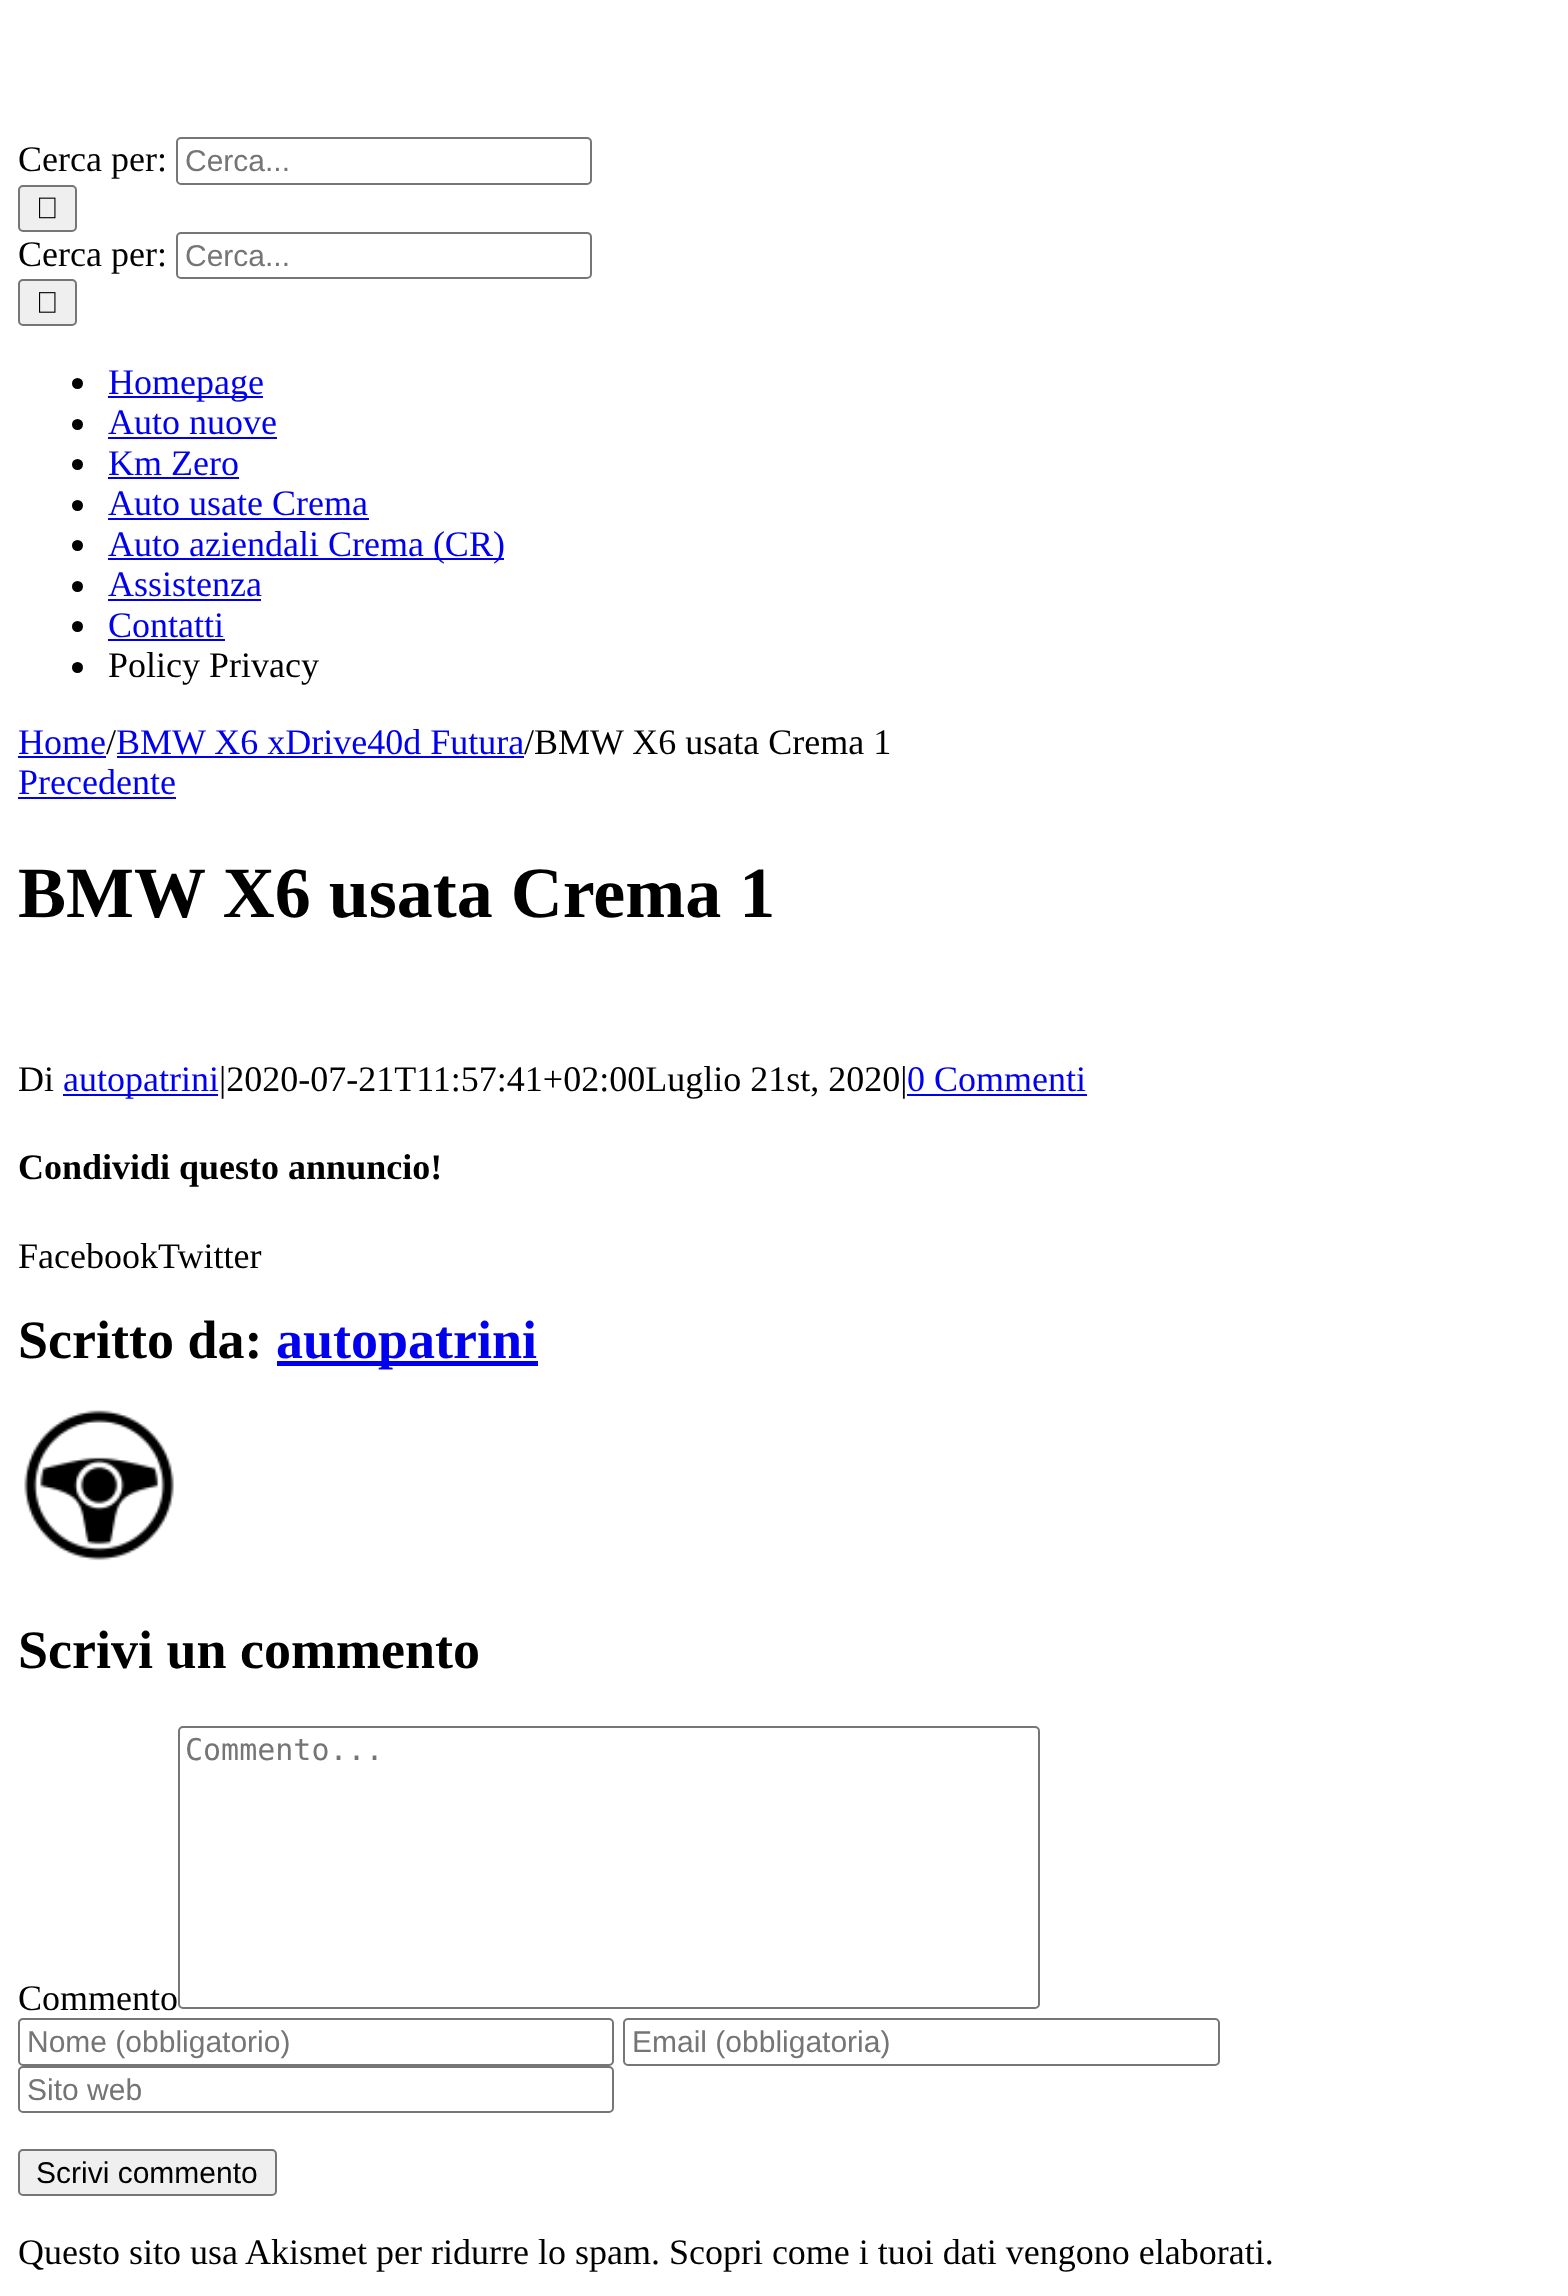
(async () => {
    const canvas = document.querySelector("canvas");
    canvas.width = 1568;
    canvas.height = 2296;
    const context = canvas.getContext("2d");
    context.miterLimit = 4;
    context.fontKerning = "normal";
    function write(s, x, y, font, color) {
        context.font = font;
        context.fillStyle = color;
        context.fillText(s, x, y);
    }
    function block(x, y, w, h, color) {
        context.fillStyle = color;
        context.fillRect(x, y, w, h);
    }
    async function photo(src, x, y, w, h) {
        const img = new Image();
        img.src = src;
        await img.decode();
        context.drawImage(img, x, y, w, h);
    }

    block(0, 0, 1568, 2296, "rgb(255, 255, 255)");
    write("Cerca per:", 18, 171, "36px Liberation Serif", "rgb(0, 0, 0)");
    context.beginPath();
    context.roundRect(177, 138, 414, 46, 4);
    context.strokeStyle = "rgb(118, 118, 118)";
    context.lineWidth = 2;
    context.stroke();
    write("Cerca...", 185, 171, "30px Liberation Sans", "rgb(117, 117, 117)");
    context.fillStyle = "rgb(239, 239, 239)";
    context.beginPath();
    context.roundRect(19, 186, 57, 45, 4);
    context.fill();
    context.stroke();
    await photo("media/1.png", 39, 197, 17, 22);
    write("Cerca per:", 18, 266, "36px Liberation Serif", "rgb(0, 0, 0)");
    context.beginPath();
    context.roundRect(177, 233, 414, 45, 4);
    context.stroke();
    write("Cerca...", 185, 266, "30px Liberation Sans", "rgb(117, 117, 117)");
    context.fillStyle = "rgb(239, 239, 239)";
    context.beginPath();
    context.roundRect(19, 280, 57, 45, 4);
    context.fill();
    context.stroke();
    await photo("media/2.png", 39, 292, 17, 21);
    context.fillStyle = "rgb(0, 0, 0)";
    context.beginPath();
    context.arc(77.5, 383.5, 5.5, 0, Math.PI * 2);
    context.fill();
    block(108, 396, 155, 2, "rgb(0, 0, 238)");
    write("Homepage", 108, 394, "36px Liberation Serif", "rgb(0, 0, 238)");
    context.fillStyle = "rgb(0, 0, 0)";
    context.beginPath();
    context.arc(77.5, 424.5, 5.5, 0, Math.PI * 2);
    context.fill();
    write("Auto nuove", 108, 434, "36px Liberation Serif", "rgb(0, 0, 238)");
    block(108, 437, 169, 2, "rgb(0, 0, 238)");
    context.fillStyle = "rgb(0, 0, 0)";
    context.beginPath();
    context.arc(77.5, 464.5, 5.5, 0, Math.PI * 2);
    context.fill();
    write("Km Zero", 108, 475, "36px Liberation Serif", "rgb(0, 0, 238)");
    block(108, 477, 131, 2, "rgb(0, 0, 238)");
    context.fillStyle = "rgb(0, 0, 0)";
    context.beginPath();
    context.arc(77.5, 505.5, 5.5, 0, Math.PI * 2);
    context.fill();
    write("Auto usate Crema", 108, 515, "36px Liberation Serif", "rgb(0, 0, 238)");
    block(108, 518, 261, 2, "rgb(0, 0, 238)");
    context.fillStyle = "rgb(0, 0, 0)";
    context.beginPath();
    context.arc(77.5, 545.5, 5.5, 0, Math.PI * 2);
    context.fill();
    block(108, 558, 396, 2, "rgb(0, 0, 238)");
    write("Auto aziendali Crema (CR)", 108, 556, "36px Liberation Serif", "rgb(0, 0, 238)");
    context.fillStyle = "rgb(0, 0, 0)";
    context.beginPath();
    context.arc(77.5, 586.5, 5.5, 0, Math.PI * 2);
    context.fill();
    write("Assistenza", 108, 596, "36px Liberation Serif", "rgb(0, 0, 238)");
    block(108, 599, 153, 2, "rgb(0, 0, 238)");
    context.fillStyle = "rgb(0, 0, 0)";
    context.beginPath();
    context.arc(77.5, 626.5, 5.5, 0, Math.PI * 2);
    context.fill();
    write("Contatti", 108, 637, "36px Liberation Serif", "rgb(0, 0, 238)");
    block(108, 639, 117, 2, "rgb(0, 0, 238)");
    context.fillStyle = "rgb(0, 0, 0)";
    context.beginPath();
    context.arc(77.5, 667.5, 5.5, 0, Math.PI * 2);
    context.fill();
    write("Policy Privacy", 108, 677, "36px Liberation Serif", "rgb(0, 0, 0)");
    write("Home", 18, 754, "36px Liberation Serif", "rgb(0, 0, 238)");
    block(18, 756, 88, 2, "rgb(0, 0, 238)");
    write("/", 106, 754, "36px Liberation Serif", "rgb(0, 0, 0)");
    write("BMW X6 xDrive40d Futura", 116, 754, "36px Liberation Serif", "rgb(0, 0, 238)");
    block(117, 756, 407, 2, "rgb(0, 0, 238)");
    write("/BMW X6 usata Crema 1", 524, 754, "36px Liberation Serif", "rgb(0, 0, 0)");
    write("Precedente", 18, 794, "36px Liberation Serif", "rgb(0, 0, 238)");
    block(18, 797, 158, 2, "rgb(0, 0, 238)");
    write("BMW X6 usata Crema 1", 18, 917, "bold 72px Liberation Serif", "rgb(0, 0, 0)");
    write("Di", 18, 1091, "36px Liberation Serif", "rgb(0, 0, 0)");
    block(63, 1094, 155, 2, "rgb(0, 0, 238)");
    write("autopatrini", 63, 1091, "36px Liberation Serif", "rgb(0, 0, 238)");
    write("|2020-07-21T11:57:41+02:00Luglio 21st, 2020|", 219, 1091, "36px Liberation Serif", "rgb(0, 0, 0)");
    write("0 Commenti", 907, 1091, "36px Liberation Serif", "rgb(0, 0, 238)");
    block(907, 1094, 180, 2, "rgb(0, 0, 238)");
    write("Condividi questo annuncio!", 18, 1179, "bold 36px Liberation Serif", "rgb(0, 0, 0)");
    write("FacebookTwitter", 18, 1268, "36px Liberation Serif", "rgb(0, 0, 0)");
    write("Scritto da:", 18, 1358, "bold 54px Liberation Serif", "rgb(0, 0, 0)");
    block(277, 1361, 261, 5, "rgb(0, 0, 238)");
    write("autopatrini", 276, 1358, "bold 54px Liberation Serif", "rgb(0, 0, 238)");
    await photo("media/3.png", 24, 1410, 150, 151);
    write("Scrivi un commento", 18, 1668, "bold 54px Liberation Serif", "rgb(0, 0, 0)");
    context.beginPath();
    context.roundRect(179, 1727, 860, 281, 4);
    context.stroke();
    write("Commento...", 185, 1760, "30px DejaVu Sans Mono", "rgb(117, 117, 117)");
    write("Commento", 18, 2010, "36px Liberation Serif", "rgb(0, 0, 0)");
    context.beginPath();
    context.roundRect(19, 2019, 594, 46, 4);
    context.stroke();
    write("Nome (obbligatorio)", 27, 2052, "30px Liberation Sans", "rgb(117, 117, 117)");
    context.beginPath();
    context.roundRect(624, 2019, 595, 46, 4);
    context.stroke();
    write("Email (obbligatoria)", 632, 2052, "30px Liberation Sans", "rgb(117, 117, 117)");
    context.beginPath();
    context.roundRect(19, 2067, 594, 45, 4);
    context.stroke();
    write("Sito web", 27, 2100, "30px Liberation Sans", "rgb(117, 117, 117)");
    context.fillStyle = "rgb(239, 239, 239)";
    context.beginPath();
    context.roundRect(19, 2150, 257, 45, 4);
    context.fill();
    context.stroke();
    write("Scrivi commento", 36, 2183, "30px Liberation Sans", "rgb(0, 0, 0)");
    write("Questo sito usa Akismet per ridurre lo spam. Scopri come i tuoi dati vengono elaborati.", 18, 2264, "36px Liberation Serif", "rgb(0, 0, 0)");
})();
